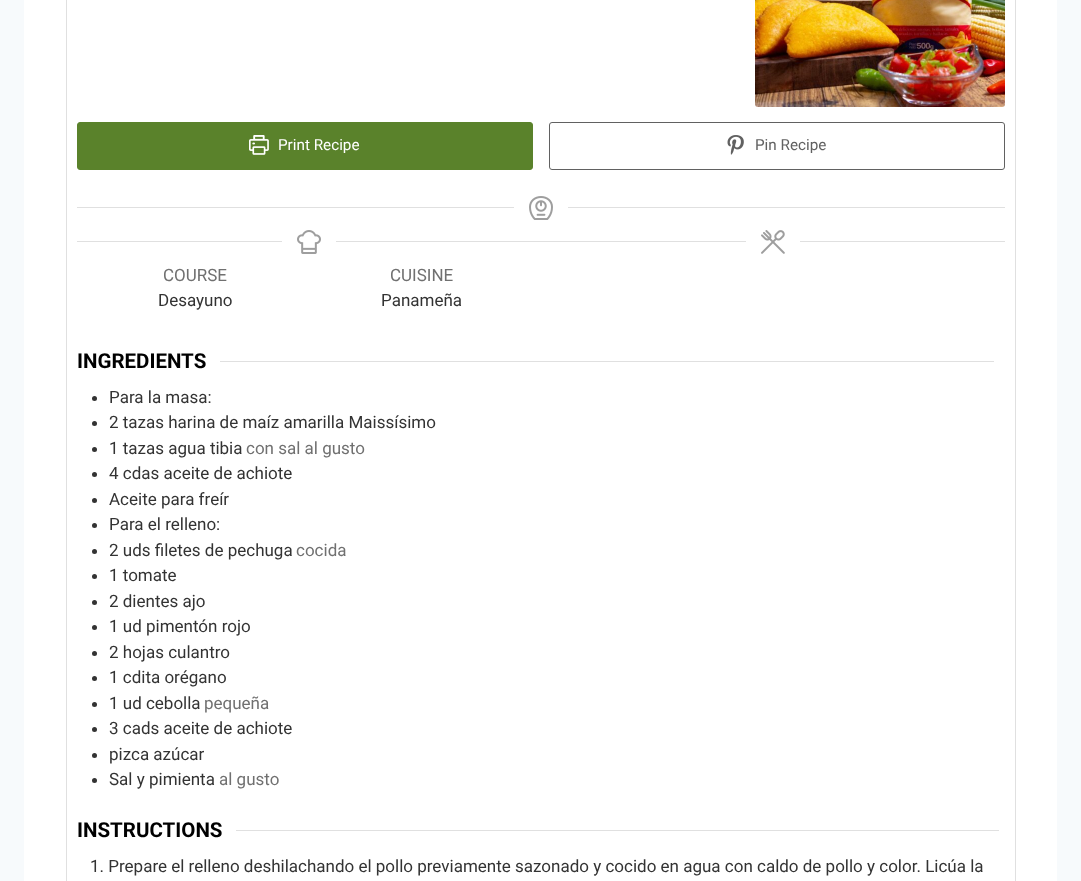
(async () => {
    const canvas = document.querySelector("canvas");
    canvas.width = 1081;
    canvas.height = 881;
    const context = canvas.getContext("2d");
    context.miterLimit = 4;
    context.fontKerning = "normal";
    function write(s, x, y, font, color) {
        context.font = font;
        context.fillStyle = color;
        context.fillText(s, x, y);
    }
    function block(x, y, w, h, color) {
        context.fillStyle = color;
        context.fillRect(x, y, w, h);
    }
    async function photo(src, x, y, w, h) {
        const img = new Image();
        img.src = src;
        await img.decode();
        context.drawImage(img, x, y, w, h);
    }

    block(0, 0, 1081, 881, "rgb(247, 250, 252)");
    block(24, 0, 1033, 881, "rgb(255, 255, 255)");
    context.strokeStyle = "rgb(224, 224, 224)";
    context.strokeRect(66.5, -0.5, 949, 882);
    await photo("media/1.png", 755, 0, 250, 107);
    context.fillStyle = "rgb(90, 130, 43)";
    context.beginPath();
    context.roundRect(77.5, 122.5, 455, 47, 2.5);
    context.fill();
    context.strokeStyle = "rgb(90, 130, 43)";
    context.stroke();
    await photo("media/2.png", 249, 135, 20, 20);
    write("Print Recipe", 278, 150, "15.25px Roboto", "rgb(255, 255, 255)");
    context.beginPath();
    context.roundRect(549.5, 122.5, 455, 47, 2.5);
    context.strokeStyle = "rgb(97, 97, 97)";
    context.stroke();
    await photo("media/3.png", 727, 135, 17, 20);
    write("Pin Recipe", 755, 150, "15.25px Roboto", "rgb(97, 97, 97)");
    block(77, 207, 437, 1, "rgb(224, 224, 224)");
    await photo("media/4.png", 529, 196, 24, 24);
    block(568, 207, 437, 1, "rgb(224, 224, 224)");
    await photo("media/5.png", 761, 230, 24, 24);
    block(800, 241, 205, 1, "rgb(224, 224, 224)");
    block(77, 241, 205, 1, "rgb(224, 224, 224)");
    await photo("media/6.png", 297, 230, 24, 24);
    block(336, 241, 410, 1, "rgb(224, 224, 224)");
    write("COURSE", 163, 281, "17px Roboto", "rgb(112, 112, 112)");
    write("Desayuno", 158, 306, "17px Roboto", "rgb(51, 51, 51)");
    write("CUISINE", 390, 281, "17px Roboto", "rgb(112, 112, 112)");
    write("Panameña", 381, 306, "17px Roboto", "rgb(51, 51, 51)");
    write("INGREDIENTS", 77, 368, "bold 20.5px Roboto", "rgb(0, 0, 0)");
    block(220, 361, 774, 1, "rgb(224, 224, 224)");
    context.fillStyle = "rgb(51, 51, 51)";
    context.beginPath();
    context.arc(94.5, 398.5, 2.5, 0, Math.PI * 2);
    context.fill();
    write("Para la masa:", 109, 403, "17px Roboto", "rgb(51, 51, 51)");
    context.beginPath();
    context.arc(94.5, 423.5, 2.5, 0, Math.PI * 2);
    context.fill();
    write("2 tazas harina de maíz amarilla Maissísimo", 109, 428, "17px Roboto", "rgb(51, 51, 51)");
    context.beginPath();
    context.arc(94.5, 449.5, 2.5, 0, Math.PI * 2);
    context.fill();
    write("1 tazas agua tibia", 109, 454, "17px Roboto", "rgb(51, 51, 51)");
    write("con sal al gusto", 246, 454, "17px Roboto", "rgb(112, 112, 112)");
    context.fillStyle = "rgb(51, 51, 51)";
    context.beginPath();
    context.arc(94.5, 474.5, 2.5, 0, Math.PI * 2);
    context.fill();
    write("4 cdas aceite de achiote", 109, 479, "17px Roboto", "rgb(51, 51, 51)");
    context.beginPath();
    context.arc(94.5, 500.5, 2.5, 0, Math.PI * 2);
    context.fill();
    write("Aceite para freír", 109, 505, "17px Roboto", "rgb(51, 51, 51)");
    context.beginPath();
    context.arc(94.5, 525.5, 2.5, 0, Math.PI * 2);
    context.fill();
    write("Para el relleno:", 109, 530, "17px Roboto", "rgb(51, 51, 51)");
    context.beginPath();
    context.arc(94.5, 551.5, 2.5, 0, Math.PI * 2);
    context.fill();
    write("2 uds filetes de pechuga", 109, 556, "17px Roboto", "rgb(51, 51, 51)");
    write("cocida", 296, 556, "17px Roboto", "rgb(112, 112, 112)");
    context.fillStyle = "rgb(51, 51, 51)";
    context.beginPath();
    context.arc(94.5, 576.5, 2.5, 0, Math.PI * 2);
    context.fill();
    write("1 tomate", 109, 581, "17px Roboto", "rgb(51, 51, 51)");
    context.beginPath();
    context.arc(94.5, 602.5, 2.5, 0, Math.PI * 2);
    context.fill();
    write("2 dientes ajo", 109, 607, "17px Roboto", "rgb(51, 51, 51)");
    context.beginPath();
    context.arc(94.5, 627.5, 2.5, 0, Math.PI * 2);
    context.fill();
    write("1 ud pimentón rojo", 109, 632, "17px Roboto", "rgb(51, 51, 51)");
    context.beginPath();
    context.arc(94.5, 653.5, 2.5, 0, Math.PI * 2);
    context.fill();
    write("2 hojas culantro", 109, 658, "17px Roboto", "rgb(51, 51, 51)");
    context.beginPath();
    context.arc(94.5, 678.5, 2.5, 0, Math.PI * 2);
    context.fill();
    write("1 cdita orégano", 109, 683, "17px Roboto", "rgb(51, 51, 51)");
    context.beginPath();
    context.arc(94.5, 704.5, 2.5, 0, Math.PI * 2);
    context.fill();
    write("1 ud cebolla", 109, 709, "17px Roboto", "rgb(51, 51, 51)");
    write("pequeña", 204, 709, "17px Roboto", "rgb(112, 112, 112)");
    context.fillStyle = "rgb(51, 51, 51)";
    context.beginPath();
    context.arc(94.5, 729.5, 2.5, 0, Math.PI * 2);
    context.fill();
    write("3 cads aceite de achiote", 109, 734, "17px Roboto", "rgb(51, 51, 51)");
    context.beginPath();
    context.arc(94.5, 755.5, 2.5, 0, Math.PI * 2);
    context.fill();
    write("pizca azúcar", 109, 760, "17px Roboto", "rgb(51, 51, 51)");
    context.beginPath();
    context.arc(94.5, 780.5, 2.5, 0, Math.PI * 2);
    context.fill();
    write("Sal y pimienta", 109, 785, "17px Roboto", "rgb(51, 51, 51)");
    write("al gusto", 219, 785, "17px Roboto", "rgb(112, 112, 112)");
    write("INSTRUCTIONS", 77, 837, "bold 20.5px Roboto", "rgb(0, 0, 0)");
    block(236, 830, 763, 1, "rgb(224, 224, 224)");
    write("1. Prepare el relleno deshilachando el pollo previamente sazonado y cocido en agua con caldo de pollo y color. Licúa la", 90, 872, "17px Roboto", "rgb(51, 51, 51)");
})();
